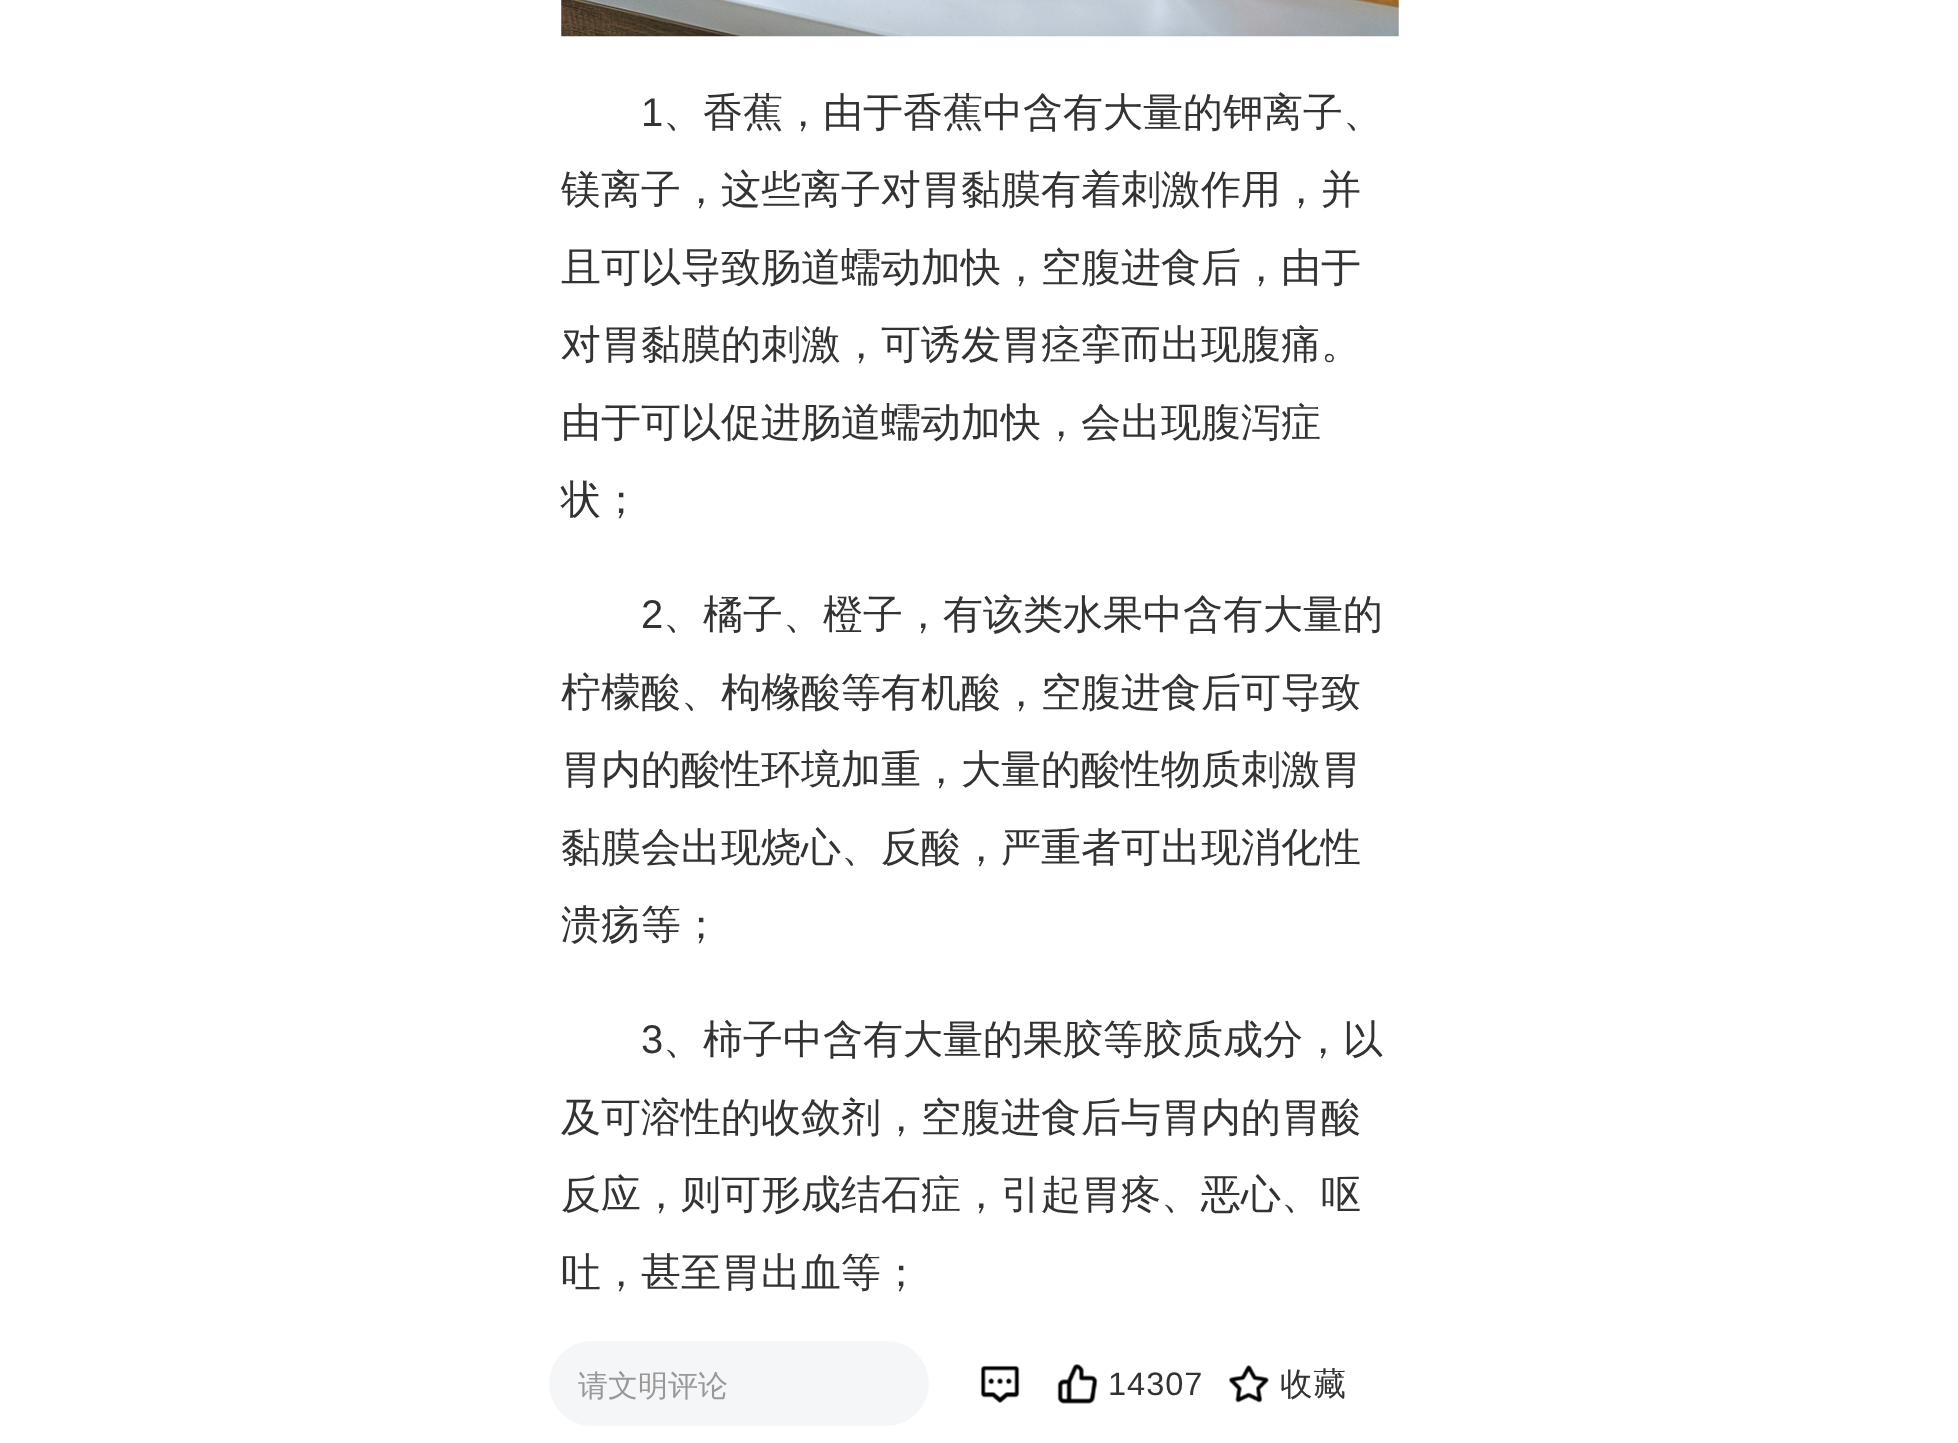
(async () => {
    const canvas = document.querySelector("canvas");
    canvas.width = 1958;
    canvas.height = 1443;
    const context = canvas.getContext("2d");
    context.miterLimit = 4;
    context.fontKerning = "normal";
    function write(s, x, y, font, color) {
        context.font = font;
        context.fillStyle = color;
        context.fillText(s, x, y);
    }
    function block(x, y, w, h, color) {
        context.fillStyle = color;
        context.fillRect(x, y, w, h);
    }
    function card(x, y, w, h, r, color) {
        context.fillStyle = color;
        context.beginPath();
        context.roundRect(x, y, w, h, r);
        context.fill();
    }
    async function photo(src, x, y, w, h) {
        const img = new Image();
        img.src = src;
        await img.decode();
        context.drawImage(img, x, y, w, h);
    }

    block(0, 0, 1958, 1443, "rgb(255, 255, 255)");
    await photo("media/1.png", 561, 0, 838, 37);
    write("1", 641, 126, "40px Liberation Sans", "rgb(51, 51, 51)");
    write("、香蕉，由于香蕉中含有大量的钾离子、", 663, 126, "500 40px WenQuanYi Zen Hei", "rgb(51, 51, 51)");
    write("镁离子，这些离子对胃黏膜有着刺激作用，并", 561, 203, "500 40px WenQuanYi Zen Hei", "rgb(51, 51, 51)");
    write("且可以导致肠道蠕动加快，空腹进食后，由于", 561, 281, "500 40px WenQuanYi Zen Hei", "rgb(51, 51, 51)");
    write("对胃黏膜的刺激，可诱发胃痉挛而出现腹痛。", 561, 358, "500 40px WenQuanYi Zen Hei", "rgb(51, 51, 51)");
    write("由于可以促进肠道蠕动加快，会出现腹泻症", 561, 436, "500 40px WenQuanYi Zen Hei", "rgb(51, 51, 51)");
    write("状；", 561, 513, "500 40px WenQuanYi Zen Hei", "rgb(51, 51, 51)");
    write("2", 641, 628, "40px Liberation Sans", "rgb(51, 51, 51)");
    write("、橘子、橙子，有该类水果中含有大量的", 663, 628, "500 40px WenQuanYi Zen Hei", "rgb(51, 51, 51)");
    write("柠檬酸、枸橼酸等有机酸，空腹进食后可导致", 561, 706, "500 40px WenQuanYi Zen Hei", "rgb(51, 51, 51)");
    write("胃内的酸性环境加重，大量的酸性物质刺激胃", 561, 783, "500 40px WenQuanYi Zen Hei", "rgb(51, 51, 51)");
    write("黏膜会出现烧心、反酸，严重者可出现消化性", 561, 861, "500 40px WenQuanYi Zen Hei", "rgb(51, 51, 51)");
    write("溃疡等；", 561, 938, "500 40px WenQuanYi Zen Hei", "rgb(51, 51, 51)");
    write("3", 641, 1053, "40px Liberation Sans", "rgb(51, 51, 51)");
    write("、柿子中含有大量的果胶等胶质成分，以", 663, 1053, "500 40px WenQuanYi Zen Hei", "rgb(51, 51, 51)");
    write("及可溶性的收敛剂，空腹进食后与胃内的胃酸", 561, 1131, "500 40px WenQuanYi Zen Hei", "rgb(51, 51, 51)");
    write("反应，则可形成结石症，引起胃疼、恶心、呕", 561, 1208, "500 40px WenQuanYi Zen Hei", "rgb(51, 51, 51)");
    write("吐，甚至胃出血等；", 561, 1286, "500 40px WenQuanYi Zen Hei", "rgb(51, 51, 51)");
    card(549, 1341, 380, 85, 42.5, "rgb(245, 246, 248)");
    write("请文明评论", 578, 1396, "500 30px WenQuanYi Zen Hei", "rgb(153, 153, 153)");
    await photo("media/2.png", 980, 1365, 40, 38);
    await photo("media/3.png", 1057, 1364, 41, 40);
    context.letterSpacing = "1px";
    write("14307", 1108, 1395, "32.5px Liberation Sans", "rgb(51, 51, 51)");
    await photo("media/4.png", 1229, 1365, 40, 38);
    write("收藏", 1280, 1395, "500 32.5px WenQuanYi Zen Hei", "rgb(51, 51, 51)");
})();
